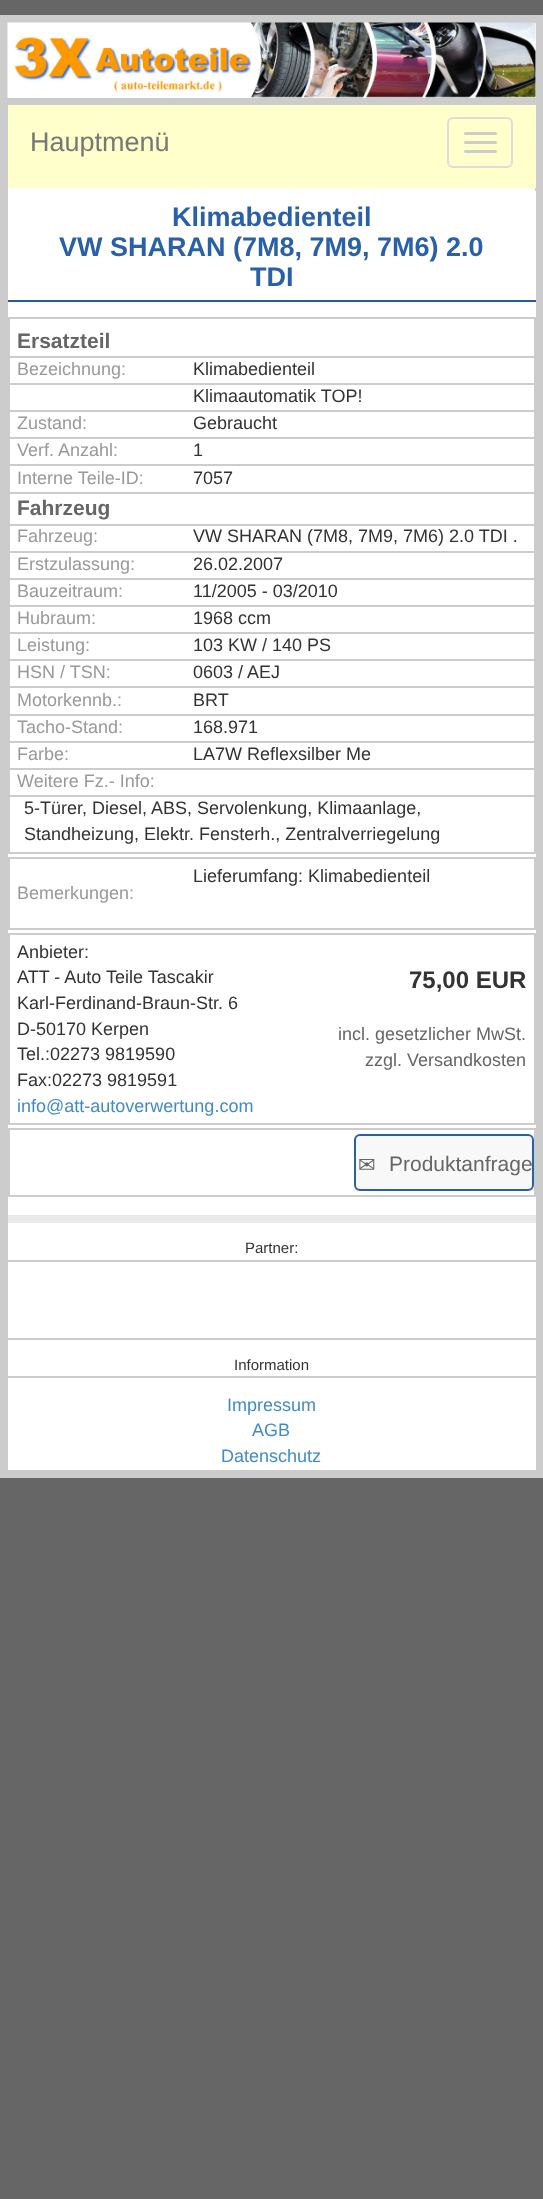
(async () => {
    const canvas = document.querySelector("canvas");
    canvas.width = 543;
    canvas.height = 2199;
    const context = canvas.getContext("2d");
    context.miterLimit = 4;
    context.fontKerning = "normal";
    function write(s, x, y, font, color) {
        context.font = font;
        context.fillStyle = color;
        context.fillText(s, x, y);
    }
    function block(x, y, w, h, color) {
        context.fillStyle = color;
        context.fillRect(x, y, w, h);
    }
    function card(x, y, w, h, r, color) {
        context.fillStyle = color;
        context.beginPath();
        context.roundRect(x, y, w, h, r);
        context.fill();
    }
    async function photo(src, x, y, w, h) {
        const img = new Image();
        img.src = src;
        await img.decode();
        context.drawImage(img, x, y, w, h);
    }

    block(0, 0, 543, 2199, "rgb(102, 102, 102)");
    block(8, 188, 527, 3, "rgb(255, 255, 255)");
    context.strokeStyle = "rgb(204, 204, 204)";
    context.lineWidth = 8;
    context.strokeRect(4, 19, 535, 1455);
    block(8, 98, 528, 7, "rgb(204, 204, 204)");
    block(8, 23, 528, 75, "rgb(255, 255, 255)");
    await photo("media/1.png", 7, 22, 529, 76);
    block(8, 105, 528, 83, "rgb(255, 255, 204)");
    write("Hauptmenü", 30, 151, "27px Liberation Sans", "rgb(119, 119, 119)");
    context.beginPath();
    context.roundRect(448, 118, 64, 49, 5);
    context.strokeStyle = "rgb(221, 221, 221)";
    context.lineWidth = 2;
    context.stroke();
    card(464, 132, 33, 3, 1.5, "rgb(204, 204, 204)");
    card(464, 141, 33, 3, 1.5, "rgb(204, 204, 204)");
    card(464, 150, 33, 3, 1.5, "rgb(204, 204, 204)");
    block(8, 191, 528, 1024, "rgb(255, 255, 255)");
    block(8, 300, 528, 2, "rgb(38, 89, 157)");
    write("Klimabedienteil", 172, 226, "bold 27px Liberation Sans", "rgb(42, 95, 170)");
    write("VW SHARAN (7M8, 7M9, 7M6) 2.0", 59, 256, "bold 27px Liberation Sans", "rgb(42, 95, 170)");
    write("TDI", 250, 286, "bold 27px Liberation Sans", "rgb(42, 95, 170)");
    context.strokeStyle = "rgb(204, 204, 204)";
    context.strokeRect(9, 318, 526, 535);
    block(9, 356, 525, 2, "rgb(204, 204, 204)");
    write("Ersatzteil", 17, 348, "bold 21px Liberation Sans", "rgb(102, 102, 102)");
    block(9, 383, 525, 2, "rgb(204, 204, 204)");
    write("Bezeichnung:", 17, 375, "18px Liberation Sans", "rgb(153, 153, 153)");
    write("Klimabedienteil", 193, 375, "18px Liberation Sans", "rgb(51, 51, 51)");
    write("Klimaautomatik TOP!", 193, 402, "18px Liberation Sans", "rgb(51, 51, 51)");
    block(9, 410, 525, 2, "rgb(204, 204, 204)");
    block(9, 437, 525, 2, "rgb(204, 204, 204)");
    write("Zustand:", 17, 429, "18px Liberation Sans", "rgb(153, 153, 153)");
    write("Gebraucht", 193, 429, "18px Liberation Sans", "rgb(51, 51, 51)");
    block(9, 464, 525, 2, "rgb(204, 204, 204)");
    write("Verf. Anzahl:", 17, 456, "18px Liberation Sans", "rgb(153, 153, 153)");
    write("1", 193, 456, "18px Liberation Sans", "rgb(51, 51, 51)");
    block(9, 492, 525, 2, "rgb(204, 204, 204)");
    write("Interne Teile-ID:", 17, 484, "18px Liberation Sans", "rgb(153, 153, 153)");
    write("7057", 193, 484, "18px Liberation Sans", "rgb(51, 51, 51)");
    block(9, 524, 525, 2, "rgb(204, 204, 204)");
    write("Fahrzeug", 17, 515, "bold 21px Liberation Sans", "rgb(102, 102, 102)");
    block(9, 551, 525, 2, "rgb(204, 204, 204)");
    write("Fahrzeug:", 17, 542, "18px Liberation Sans", "rgb(153, 153, 153)");
    write("VW SHARAN (7M8, 7M9, 7M6) 2.0 TDI .", 193, 542, "18px Liberation Sans", "rgb(51, 51, 51)");
    block(9, 578, 525, 2, "rgb(204, 204, 204)");
    write("Erstzulassung:", 17, 570, "18px Liberation Sans", "rgb(153, 153, 153)");
    write("26.02.2007", 193, 570, "18px Liberation Sans", "rgb(51, 51, 51)");
    block(9, 605, 525, 2, "rgb(204, 204, 204)");
    write("Bauzeitraum:", 17, 597, "18px Liberation Sans", "rgb(153, 153, 153)");
    write("11/2005 - 03/2010", 193, 597, "18px Liberation Sans", "rgb(51, 51, 51)");
    block(9, 632, 525, 2, "rgb(204, 204, 204)");
    write("Hubraum:", 17, 624, "18px Liberation Sans", "rgb(153, 153, 153)");
    write("1968 ccm", 193, 624, "18px Liberation Sans", "rgb(51, 51, 51)");
    block(9, 659, 525, 2, "rgb(204, 204, 204)");
    write("Leistung:", 17, 651, "18px Liberation Sans", "rgb(153, 153, 153)");
    write("103 KW / 140 PS", 193, 651, "18px Liberation Sans", "rgb(51, 51, 51)");
    block(9, 686, 525, 2, "rgb(204, 204, 204)");
    write("HSN / TSN:", 17, 678, "18px Liberation Sans", "rgb(153, 153, 153)");
    write("0603 / AEJ", 193, 678, "18px Liberation Sans", "rgb(51, 51, 51)");
    block(9, 714, 525, 2, "rgb(204, 204, 204)");
    write("Motorkennb.:", 17, 706, "18px Liberation Sans", "rgb(153, 153, 153)");
    write("BRT", 193, 706, "18px Liberation Sans", "rgb(51, 51, 51)");
    block(9, 741, 525, 2, "rgb(204, 204, 204)");
    write("Tacho-Stand:", 17, 733, "18px Liberation Sans", "rgb(153, 153, 153)");
    write("168.971", 193, 733, "18px Liberation Sans", "rgb(51, 51, 51)");
    block(9, 768, 525, 2, "rgb(204, 204, 204)");
    write("Farbe:", 17, 760, "18px Liberation Sans", "rgb(153, 153, 153)");
    write("LA7W Reflexsilber Me", 193, 760, "18px Liberation Sans", "rgb(51, 51, 51)");
    block(9, 795, 525, 2, "rgb(204, 204, 204)");
    write("Weitere Fz.- Info:", 17, 787, "18px Liberation Sans", "rgb(153, 153, 153)");
    write("5-Türer, Diesel, ABS, Servolenkung, Klimaanlage,", 24, 814, "18px Liberation Sans", "rgb(51, 51, 51)");
    write("Standheizung, Elektr. Fensterh., Zentralverriegelung", 24, 840, "18px Liberation Sans", "rgb(51, 51, 51)");
    context.strokeRect(9, 858, 526, 71);
    write("Lieferumfang: Klimabedienteil", 193, 882, "18px Liberation Sans", "rgb(51, 51, 51)");
    write("Bemerkungen:", 17, 899, "18px Liberation Sans", "rgb(153, 153, 153)");
    context.strokeRect(9, 934, 526, 190);
    write("Anbieter:", 17, 958, "18px Liberation Sans", "rgb(51, 51, 51)");
    write("ATT - Auto Teile Tascakir", 17, 983, "18px Liberation Sans", "rgb(51, 51, 51)");
    write("Karl-Ferdinand-Braun-Str. 6", 17, 1009, "18px Liberation Sans", "rgb(51, 51, 51)");
    write("D-50170 Kerpen", 17, 1035, "18px Liberation Sans", "rgb(51, 51, 51)");
    write("Tel.:02273 9819590", 17, 1060, "18px Liberation Sans", "rgb(51, 51, 51)");
    write("Fax:02273 9819591", 17, 1086, "18px Liberation Sans", "rgb(51, 51, 51)");
    write("info@att-autoverwertung.com", 17, 1112, "18px Liberation Sans", "rgb(66, 139, 202)");
    write("75,00 EUR", 409, 988, "bold 24px Liberation Sans", "rgb(51, 51, 51)");
    write("incl. gesetzlicher MwSt.", 338, 1040, "18px Liberation Sans", "rgb(102, 102, 102)");
    write("zzgl. Versandkosten", 365, 1066, "18px Liberation Sans", "rgb(102, 102, 102)");
    context.strokeRect(9, 1129, 526, 67);
    context.fillStyle = "rgb(248, 248, 248)";
    context.beginPath();
    context.roundRect(355, 1135, 178, 55, 5);
    context.fill();
    context.strokeStyle = "rgb(42, 95, 170)";
    context.stroke();
    write("✉", 358, 1172, "21px DejaVu Sans", "rgb(102, 102, 102)");
    write("Produktanfrage", 389, 1171, "21px Liberation Sans", "rgb(102, 102, 102)");
    block(8, 1223, 528, 247, "rgb(255, 255, 255)");
    block(8, 1215, 528, 8, "rgb(234, 234, 234)");
    block(8, 1260, 528, 2, "rgb(204, 204, 204)");
    write("Partner:", 245, 1253, "15px Liberation Sans", "rgb(51, 51, 51)");
    block(8, 1338, 528, 2, "rgb(204, 204, 204)");
    block(8, 1376, 528, 2, "rgb(204, 204, 204)");
    write("Information", 234, 1370, "15px Liberation Sans", "rgb(51, 51, 51)");
    write("Impressum", 227, 1411, "18px Liberation Sans", "rgb(66, 139, 202)");
    write("AGB", 252, 1436, "18px Liberation Sans", "rgb(66, 139, 202)");
    write("Datenschutz", 221, 1462, "18px Liberation Sans", "rgb(66, 139, 202)");
})();
